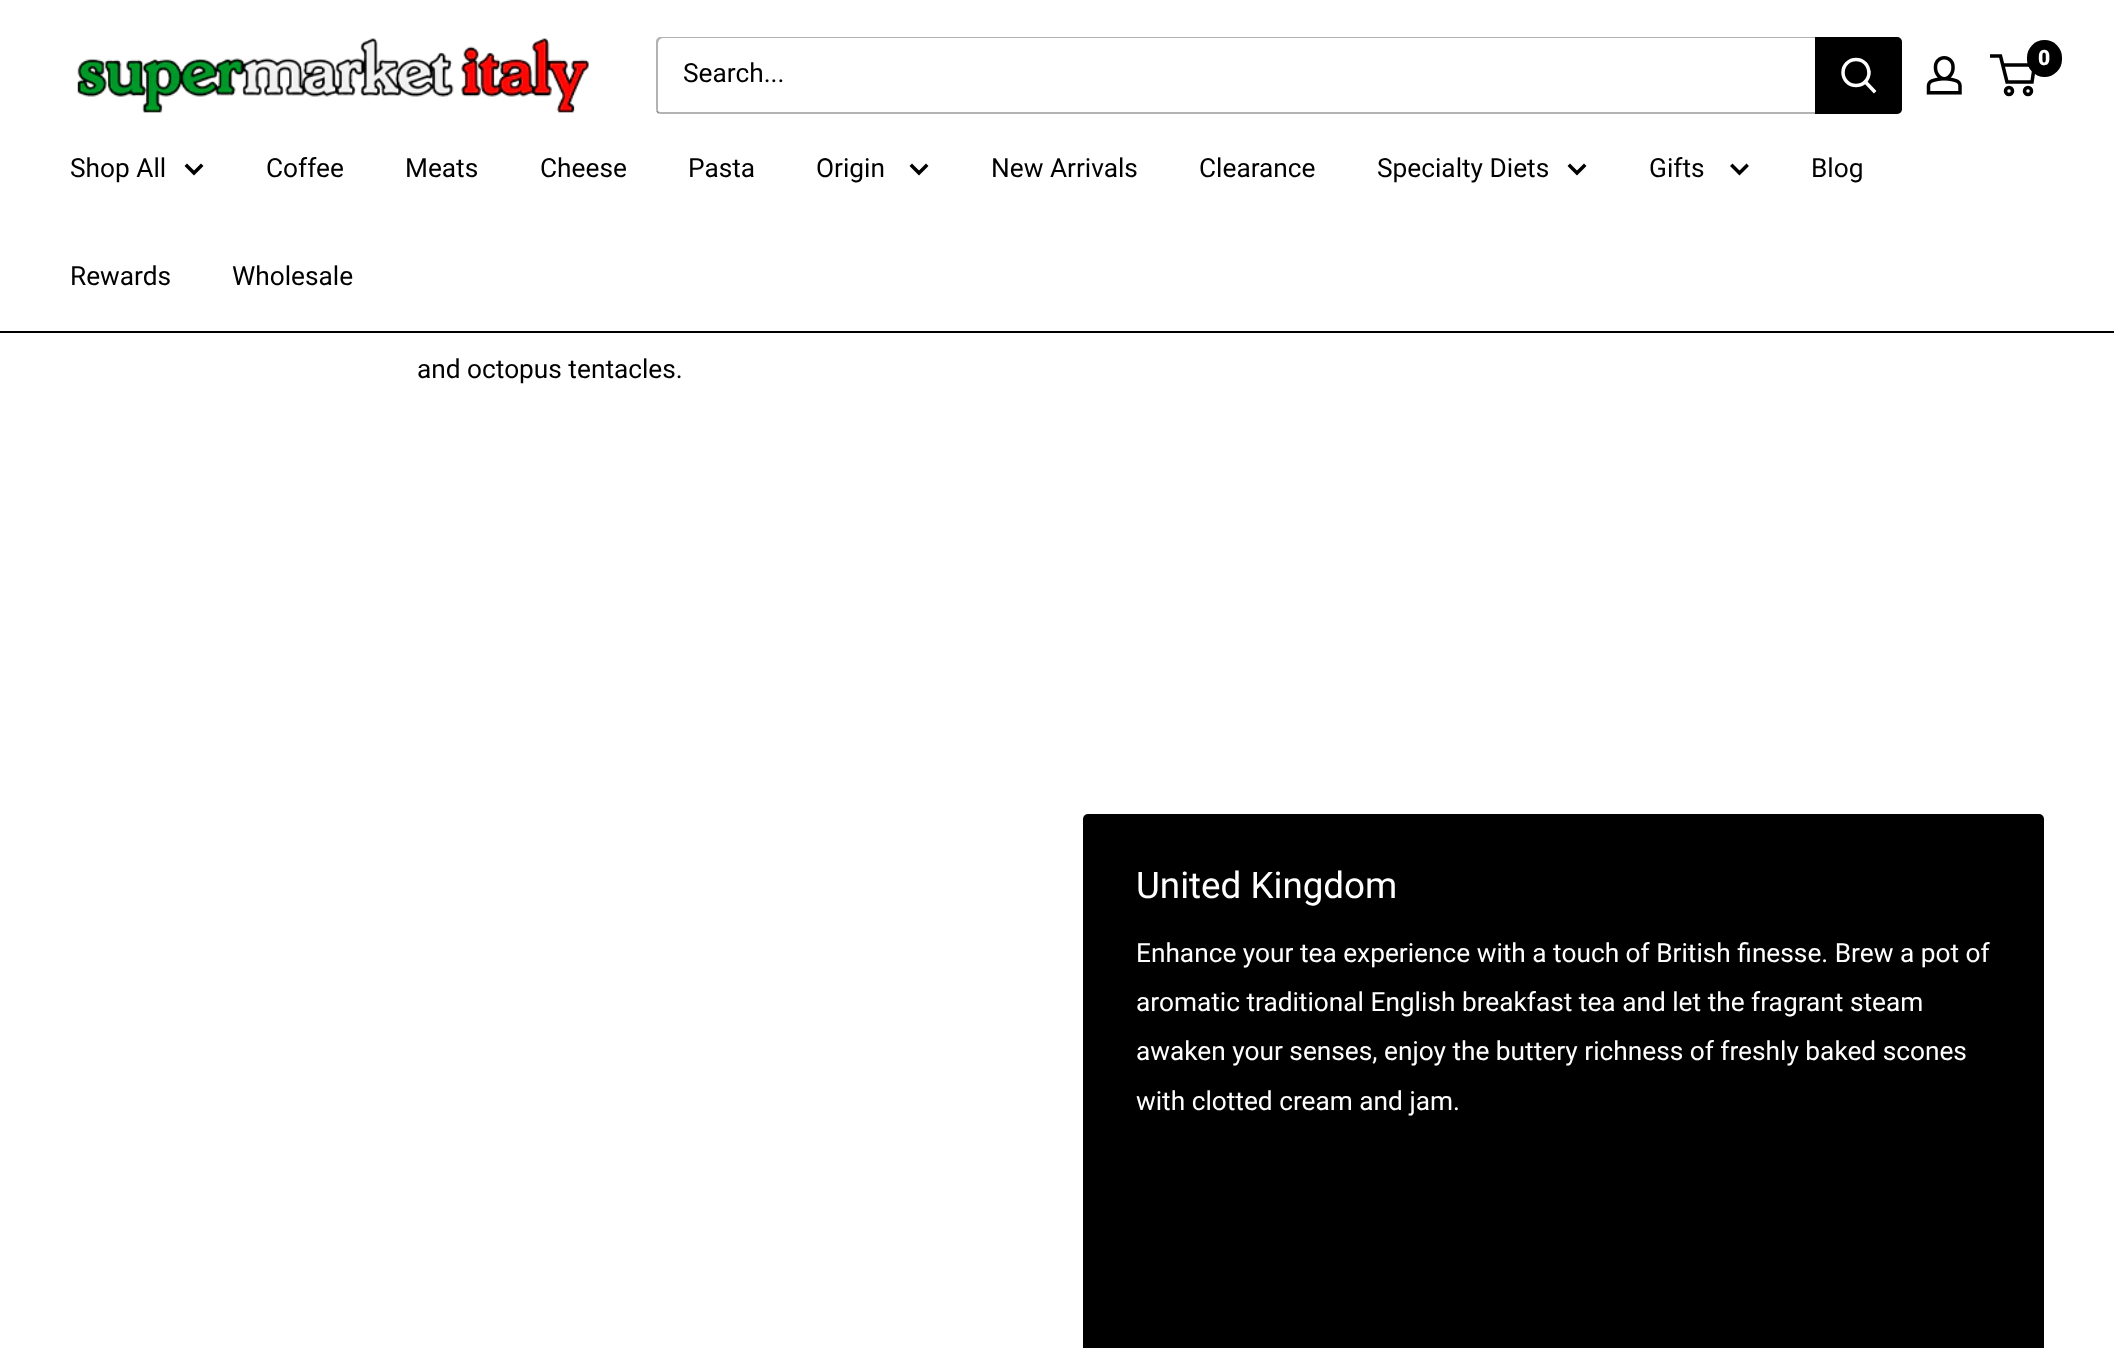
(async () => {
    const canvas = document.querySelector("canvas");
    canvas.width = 2114;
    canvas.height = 1348;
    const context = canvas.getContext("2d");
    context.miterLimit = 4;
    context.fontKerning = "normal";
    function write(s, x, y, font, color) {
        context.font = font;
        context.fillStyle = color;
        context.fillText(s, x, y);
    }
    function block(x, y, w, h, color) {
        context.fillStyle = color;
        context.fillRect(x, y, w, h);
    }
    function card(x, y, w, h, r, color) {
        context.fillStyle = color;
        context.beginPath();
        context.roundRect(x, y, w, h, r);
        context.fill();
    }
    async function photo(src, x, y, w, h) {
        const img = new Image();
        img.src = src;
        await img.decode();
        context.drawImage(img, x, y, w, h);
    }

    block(0, 0, 2114, 1348, "rgb(255, 255, 255)");
    await photo("media/1.png", 77, 38, 512, 75);
    await photo("media/2.png", 1926, 56, 36, 39);
    context.beginPath();
    context.arc(2009, 91, 3.5, 0, Math.PI * 2);
    context.strokeStyle = "rgb(0, 0, 0)";
    context.lineWidth = 3.5;
    context.stroke();
    context.beginPath();
    context.arc(2028, 91, 3.5, 0, Math.PI * 2);
    context.stroke();
    context.beginPath();
    context.moveTo(2002.5, 65);
    context.lineTo(2034.5, 65);
    context.lineTo(2032, 82);
    context.lineTo(2007, 82);
    context.lineTo(2000.5, 56);
    context.lineTo(1990, 56);
    context.stroke();
    card(2027, 40, 35, 37, 17.5, "rgb(0, 0, 0)");
    write("0", 2038, 65, "900 21px Roboto", "rgb(255, 255, 255)");
    context.fillStyle = "rgb(179, 179, 179)";
    context.beginPath();
    context.moveTo(656, 111);
    context.bezierCurveTo(657, 113, 659, 114, 661, 114);
    context.lineTo(1897, 114);
    context.bezierCurveTo(1900, 114, 1902, 112, 1902, 109);
    context.lineTo(1902, 42);
    context.bezierCurveTo(1902, 40, 1901, 39, 1900, 38);
    context.lineTo(1900, 40);
    context.lineTo(1900, 107);
    context.bezierCurveTo(1900, 110, 1898, 112, 1895, 112);
    context.lineTo(660, 112);
    context.closePath();
    context.fill();
    context.fillStyle = "rgba(0, 0, 0, 0.3)";
    context.beginPath();
    context.moveTo(663, 38);
    context.lineTo(1900, 38);
    context.bezierCurveTo(1899, 37, 1898, 37, 1897, 37);
    context.lineTo(661, 37);
    context.bezierCurveTo(658, 37, 656, 39, 656, 42);
    context.lineTo(656, 109);
    context.bezierCurveTo(656, 111, 657, 113, 659, 114);
    context.lineTo(658, 110);
    context.lineTo(658, 44);
    context.bezierCurveTo(658, 41, 660, 38, 663, 38);
    context.closePath();
    context.fill();
    write("Search...", 683, 82, "26.25px Roboto", "rgb(0, 0, 0)");
    context.beginPath();
    context.roundRect(1815, 37, 87, 77, [0, 5, 5, 0]);
    context.fill();
    context.beginPath();
    context.moveTo(1874, 91);
    context.lineTo(1865.5, 82);
    context.strokeStyle = "rgb(255, 255, 255)";
    context.lineCap = "square";
    context.stroke();
    context.beginPath();
    context.arc(1856, 72.5, 13, 0, Math.PI * 2);
    context.stroke();
    block(0, 331, 2114, 2, "rgb(0, 0, 0)");
    write("Shop All", 70, 177, "26.25px Roboto", "rgb(0, 0, 0)");
    context.beginPath();
    context.moveTo(201, 166);
    context.lineTo(194, 173);
    context.lineTo(187, 166);
    context.strokeStyle = "rgb(0, 0, 0)";
    context.stroke();
    write("Coffee", 266, 177, "26.25px Roboto", "rgb(0, 0, 0)");
    write("Meats", 405, 177, "26.25px Roboto", "rgb(0, 0, 0)");
    write("Cheese", 540, 177, "26.25px Roboto", "rgb(0, 0, 0)");
    write("Pasta", 688, 177, "26.25px Roboto", "rgb(0, 0, 0)");
    write("Origin", 816, 177, "26.25px Roboto", "rgb(0, 0, 0)");
    context.beginPath();
    context.moveTo(926, 166);
    context.lineTo(919, 173);
    context.lineTo(912, 166);
    context.stroke();
    write("New Arrivals", 991, 177, "26.25px Roboto", "rgb(0, 0, 0)");
    write("Clearance", 1199, 177, "26.25px Roboto", "rgb(0, 0, 0)");
    write("Specialty Diets", 1377, 177, "26.25px Roboto", "rgb(0, 0, 0)");
    context.beginPath();
    context.moveTo(1584, 166);
    context.lineTo(1577, 173);
    context.lineTo(1570, 166);
    context.stroke();
    write("Gifts", 1649, 177, "26.25px Roboto", "rgb(0, 0, 0)");
    context.beginPath();
    context.moveTo(1746.5, 166);
    context.lineTo(1739.5, 173);
    context.lineTo(1732.5, 166);
    context.stroke();
    write("Blog", 1811, 177, "26.25px Roboto", "rgb(0, 0, 0)");
    write("Rewards", 70, 285, "26.25px Roboto", "rgb(0, 0, 0)");
    write("Wholesale", 232, 285, "26.25px Roboto", "rgb(0, 0, 0)");
    write("and octopus tentacles.", 417, 378, "26.25px Roboto", "rgb(0, 0, 0)");
    card(1083, 814, 961, 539, 5, "rgb(0, 0, 0)");
    write("United Kingdom", 1136, 898, "36.75px Roboto", "rgb(255, 255, 255)");
    write("Enhance your tea experience with a touch of British finesse. Brew a pot of", 1136, 962, "26.25px Roboto", "rgb(255, 255, 255)");
    write("aromatic traditional English breakfast tea and let the fragrant steam", 1136, 1011, "26.25px Roboto", "rgb(255, 255, 255)");
    write("awaken your senses, enjoy the buttery richness of freshly baked scones", 1136, 1060, "26.25px Roboto", "rgb(255, 255, 255)");
    write("with clotted cream and jam.", 1136, 1110, "26.25px Roboto", "rgb(255, 255, 255)");
})();
